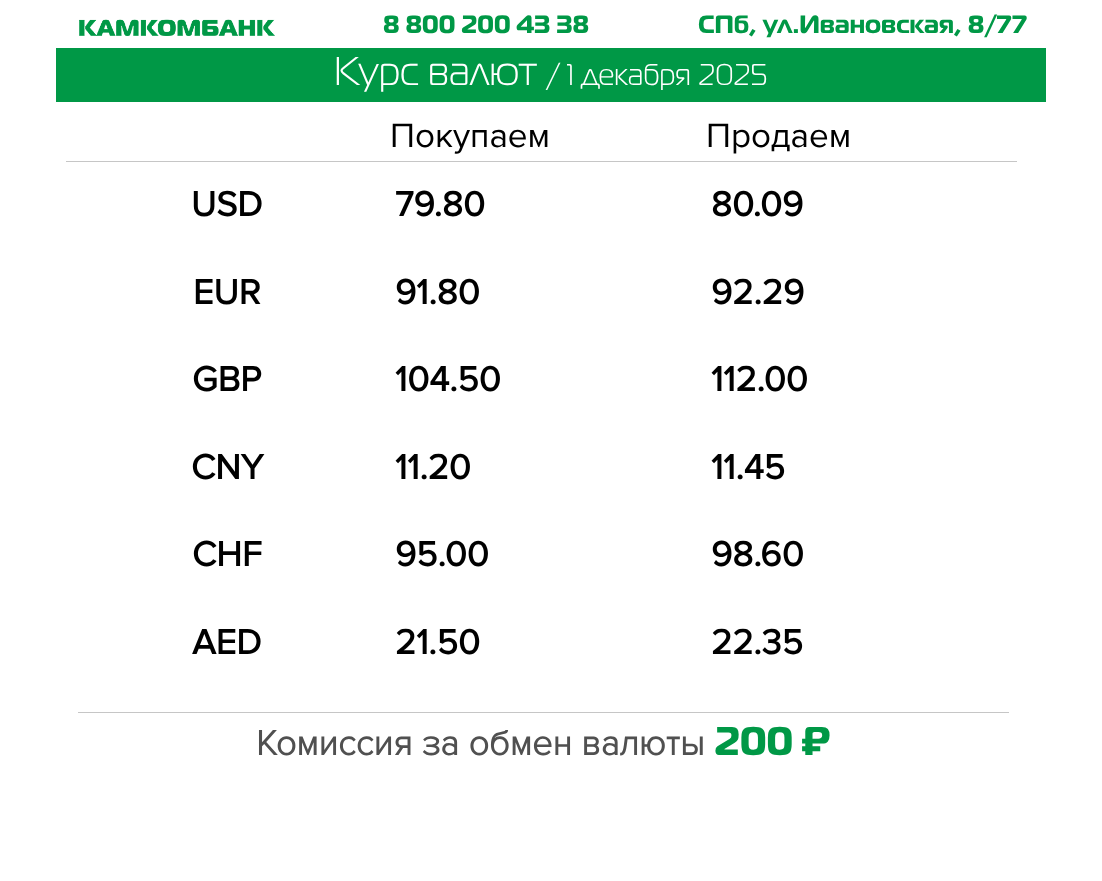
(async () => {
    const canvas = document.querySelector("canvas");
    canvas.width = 1102;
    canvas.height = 881;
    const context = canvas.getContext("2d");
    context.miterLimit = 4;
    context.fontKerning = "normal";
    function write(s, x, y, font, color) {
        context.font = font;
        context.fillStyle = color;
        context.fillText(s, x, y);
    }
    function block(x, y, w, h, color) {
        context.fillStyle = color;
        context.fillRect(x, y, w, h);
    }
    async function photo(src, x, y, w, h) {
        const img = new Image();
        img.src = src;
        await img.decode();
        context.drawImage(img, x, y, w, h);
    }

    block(0, 0, 1102, 881, "rgb(255, 255, 255)");
    await photo("media/1.png", 79, 19, 196, 17);
    write("8 800 200 43 38", 383, 33, "bold 25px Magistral", "rgb(0, 152, 70)");
    write("СПб, ул.Ивановская, 8/77", 698, 33, "bold 25px Magistral", "rgb(0, 152, 70)");
    block(56, 48, 990, 54, "rgb(0, 152, 70)");
    write("Курс валют", 334, 85, "300 40px Magistral", "rgb(255, 255, 255)");
    write("/ 1 декабря 2025", 546, 85, "300 30px Magistral", "rgb(255, 255, 255)");
    write("Покупаем", 390, 147, "35px Proxima Nova", "rgb(0, 0, 0)");
    block(66, 161, 951, 1, "rgb(198, 198, 198)");
    write("Продаем", 706, 147, "35px Proxima Nova", "rgb(0, 0, 0)");
    write("USD", 191, 216, "bold 36px Proxima Nova", "rgb(0, 0, 0)");
    write("79.80", 395, 216, "bold 36px Proxima Nova", "rgb(0, 0, 0)");
    write("80.09", 711, 216, "bold 36px Proxima Nova", "rgb(0, 0, 0)");
    write("EUR", 193, 304, "bold 36px Proxima Nova", "rgb(0, 0, 0)");
    write("91.80", 395, 304, "bold 36px Proxima Nova", "rgb(0, 0, 0)");
    write("92.29", 711, 304, "bold 36px Proxima Nova", "rgb(0, 0, 0)");
    write("GBP", 192, 391, "bold 36px Proxima Nova", "rgb(0, 0, 0)");
    write("104.50", 395, 391, "bold 36px Proxima Nova", "rgb(0, 0, 0)");
    write("112.00", 711, 391, "bold 36px Proxima Nova", "rgb(0, 0, 0)");
    write("CNY", 191, 479, "bold 36px Proxima Nova", "rgb(0, 0, 0)");
    write("11.20", 395, 479, "bold 36px Proxima Nova", "rgb(0, 0, 0)");
    write("11.45", 711, 479, "bold 36px Proxima Nova", "rgb(0, 0, 0)");
    write("CHF", 192, 566, "bold 36px Proxima Nova", "rgb(0, 0, 0)");
    write("95.00", 395, 566, "bold 36px Proxima Nova", "rgb(0, 0, 0)");
    write("98.60", 711, 566, "bold 36px Proxima Nova", "rgb(0, 0, 0)");
    write("AED", 192, 654, "bold 36px Proxima Nova", "rgb(0, 0, 0)");
    write("21.50", 395, 654, "bold 36px Proxima Nova", "rgb(0, 0, 0)");
    write("22.35", 711, 654, "bold 36px Proxima Nova", "rgb(0, 0, 0)");
    block(78, 712, 931, 1, "rgb(198, 198, 198)");
    write("Комиссия за обмен валюты", 256, 755, "bold 36px 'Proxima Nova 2'", "rgb(80, 80, 80)");
    write("200 ₽", 714, 755, "bold 40px Magistral", "rgb(0, 152, 70)");
})();
